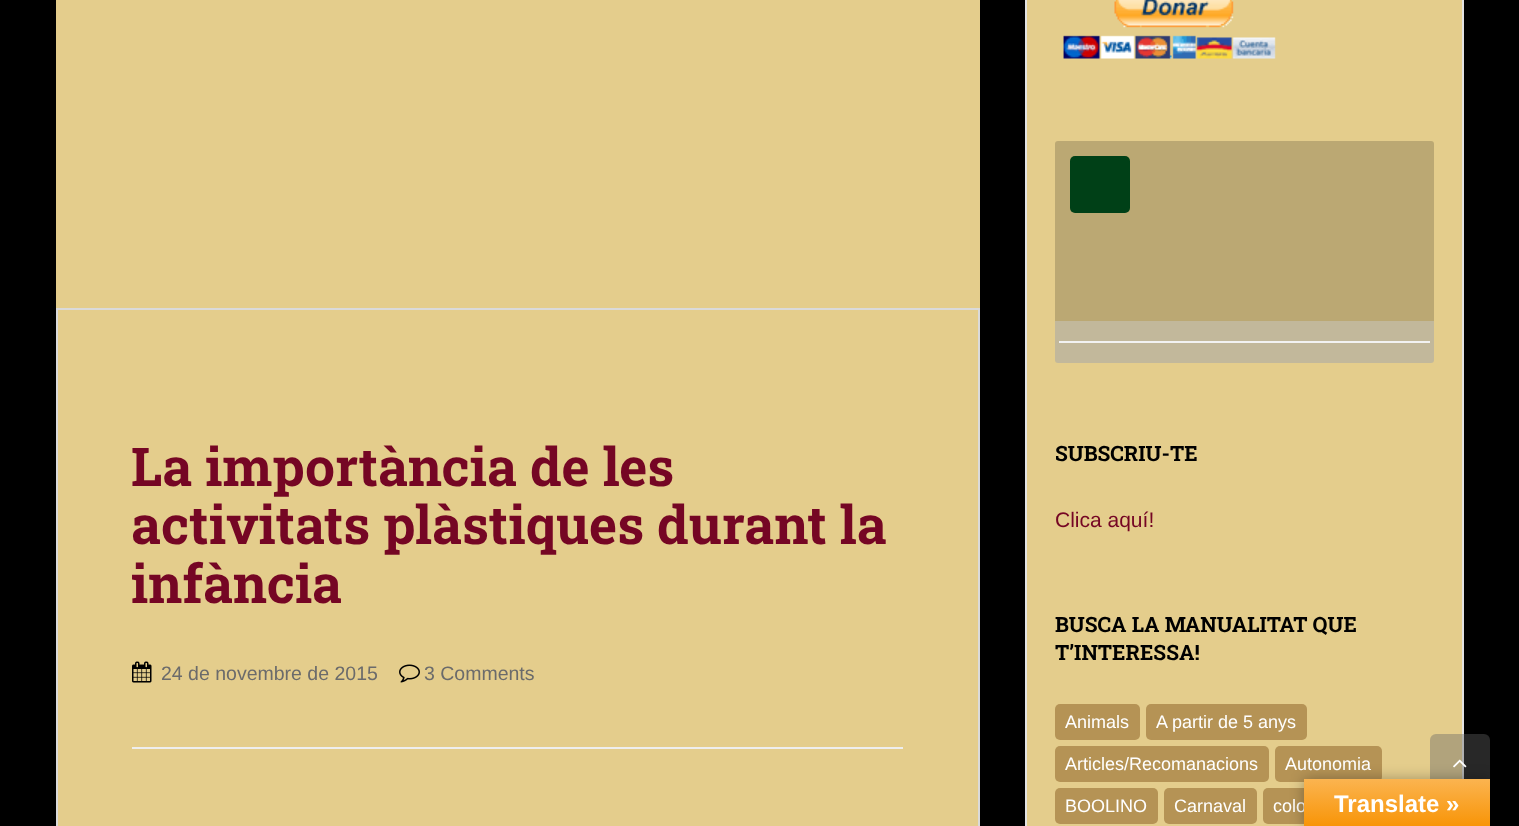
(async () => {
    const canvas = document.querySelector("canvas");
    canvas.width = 1519;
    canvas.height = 826;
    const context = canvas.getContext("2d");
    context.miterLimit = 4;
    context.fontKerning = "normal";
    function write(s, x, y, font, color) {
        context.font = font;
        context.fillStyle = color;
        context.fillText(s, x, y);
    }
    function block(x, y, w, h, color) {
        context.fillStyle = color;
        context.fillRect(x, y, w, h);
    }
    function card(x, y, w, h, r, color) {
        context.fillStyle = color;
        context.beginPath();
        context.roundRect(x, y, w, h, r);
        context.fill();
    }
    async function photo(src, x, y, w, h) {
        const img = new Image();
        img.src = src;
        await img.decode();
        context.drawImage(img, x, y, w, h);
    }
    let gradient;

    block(0, 0, 1519, 826, "rgb(0, 0, 0)");
    block(56, 0, 924, 826, "rgb(228, 205, 140)");
    context.strokeStyle = "rgb(218, 218, 218)";
    context.lineWidth = 2;
    context.strokeRect(57, 309, 922, 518);
    block(132, 747, 771, 2, "rgb(238, 238, 238)");
    write("La importància de les", 131, 486, "bold 53.3px Roboto Slab", "rgb(117, 6, 36)");
    write("activitats plàstiques durant la", 131, 544, "bold 53.3px Roboto Slab", "rgb(117, 6, 36)");
    write("infància", 131, 603, "bold 53.3px Roboto Slab", "rgb(117, 6, 36)");
    await photo("media/1.png", 132, 661, 20, 22);
    write("24 de novembre de 2015", 161, 680, "19.5px Liberation Sans", "rgb(107, 107, 107)");
    await photo("media/2.png", 399, 664, 21, 19);
    write("3 Comments", 424, 680, "19.5px Liberation Sans", "rgb(107, 107, 107)");
    context.fillStyle = "rgb(228, 205, 140)";
    context.beginPath();
    context.rect(1026, -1, 437, 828);
    context.fill();
    context.strokeStyle = "rgb(227, 227, 227)";
    context.stroke();
    await photo("media/3.png", 1063, 0, 213, 59);
    context.fillStyle = "rgb(187, 168, 115)";
    context.beginPath();
    context.roundRect(1055, 141, 379, 180, [3, 3, 0, 0]);
    context.fill();
    card(1070, 156, 60, 57, 5, "rgb(0, 64, 23)");
    context.fillStyle = "rgb(194, 184, 155)";
    context.beginPath();
    context.roundRect(1055, 321, 379, 42, [0, 0, 3, 3]);
    context.fill();
    block(1059, 341, 371, 2, "rgb(242, 242, 242)");
    write("SUBSCRIU-TE", 1055, 461, "bold 21px Roboto Slab", "rgb(0, 0, 0)");
    write("Clica aquí!", 1055, 527, "21px Liberation Sans", "rgb(117, 6, 36)");
    write("BUSCA LA MANUALITAT QUE", 1055, 632, "bold 21px Roboto Slab", "rgb(0, 0, 0)");
    write("T’INTERESSA!", 1055, 660, "bold 21px Roboto Slab", "rgb(0, 0, 0)");
    card(1055, 704, 85, 36, 5, "rgb(181, 147, 85)");
    write("Animals", 1065, 728, "18px Liberation Sans", "rgb(255, 255, 255)");
    card(1146, 704, 161, 36, 5, "rgb(181, 147, 85)");
    write("A partir de 5 anys", 1156, 728, "18px Liberation Sans", "rgb(255, 255, 255)");
    card(1055, 746, 214, 36, 5, "rgb(181, 147, 85)");
    write("Articles/Recomanacions", 1065, 770, "18px Liberation Sans", "rgb(255, 255, 255)");
    card(1275, 746, 107, 36, 5, "rgb(181, 147, 85)");
    write("Autonomia", 1285, 770, "18px Liberation Sans", "rgb(255, 255, 255)");
    card(1055, 788, 103, 36, 5, "rgb(181, 147, 85)");
    write("BOOLINO", 1065, 812, "18px Liberation Sans", "rgb(255, 255, 255)");
    card(1164, 788, 93, 36, 5, "rgb(181, 147, 85)");
    write("Carnaval", 1174, 812, "18px Liberation Sans", "rgb(255, 255, 255)");
    card(1263, 788, 69, 36, 5, "rgb(181, 147, 85)");
    write("colo", 1273, 812, "18px Liberation Sans", "rgb(255, 255, 255)");
    card(1430, 734, 60, 60, 6, "rgba(100, 100, 100, 0.4)");
    await photo("media/4.png", 1453, 759, 14, 9);
    context.fillStyle = "rgba(0, 0, 0, 0.3)";
    context.filter = "blur(7px)";
    context.beginPath();
    context.rect(1304, 779, 186, 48);
    context.fill();
    context.filter = "none";
    gradient = context.createLinearGradient(1397, 779, 1397, 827);
    gradient.addColorStop(0, "rgb(251, 180, 80)");
    gradient.addColorStop(1, "rgb(248, 148, 6)");
    context.fillStyle = gradient;
    context.fillRect(1304, 779, 186, 47);
    write("Translate »", 1334, 812, "bold 24px Liberation Sans", "rgb(255, 255, 255)");
})();
